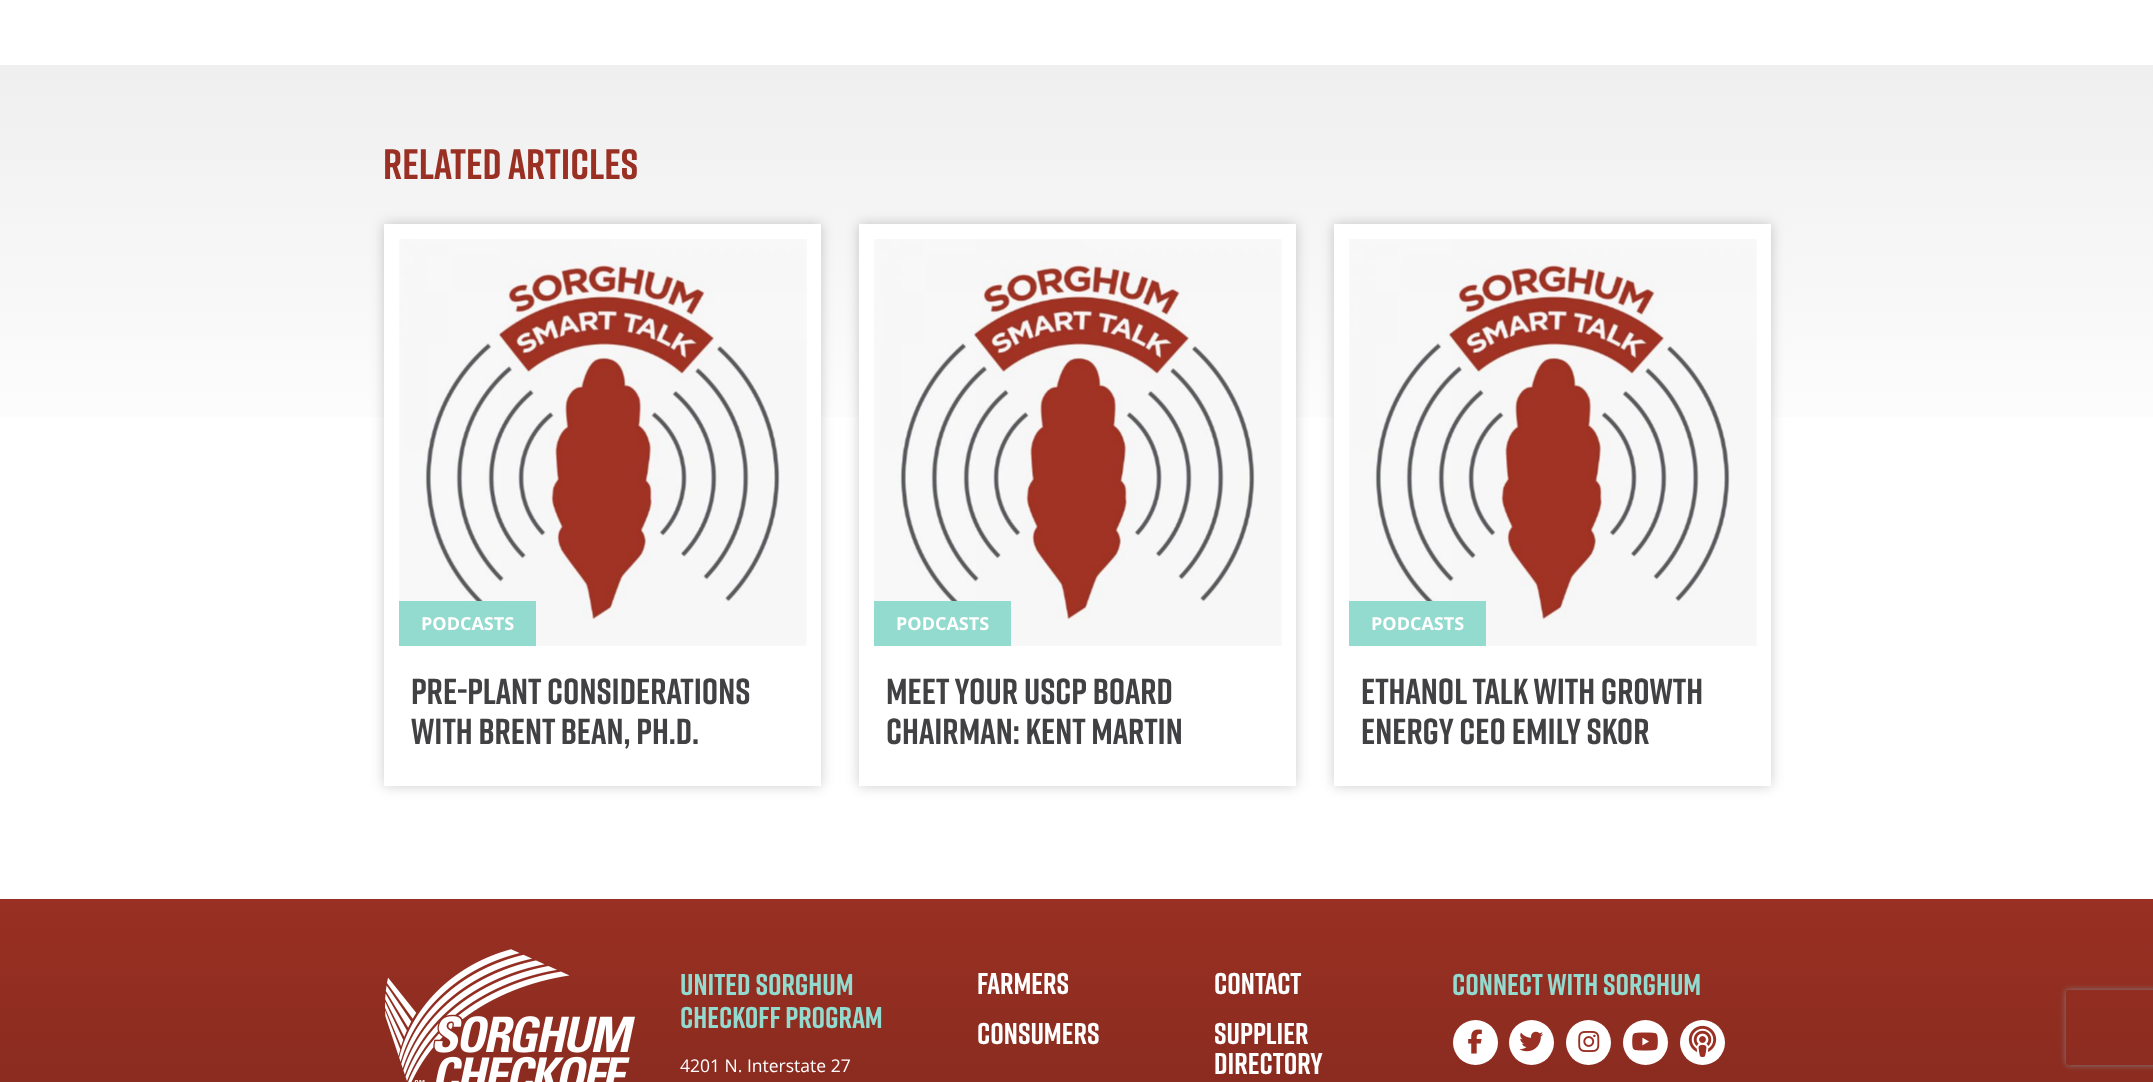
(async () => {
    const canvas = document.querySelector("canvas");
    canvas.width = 2153;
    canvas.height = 1082;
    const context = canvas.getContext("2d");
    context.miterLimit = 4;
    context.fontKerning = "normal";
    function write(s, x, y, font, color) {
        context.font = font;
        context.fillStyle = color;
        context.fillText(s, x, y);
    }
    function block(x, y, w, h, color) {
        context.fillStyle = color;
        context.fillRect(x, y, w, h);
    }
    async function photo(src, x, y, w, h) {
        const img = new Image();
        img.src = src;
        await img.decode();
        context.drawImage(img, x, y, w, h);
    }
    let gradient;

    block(0, 0, 2153, 1082, "rgb(255, 255, 255)");
    gradient = context.createLinearGradient(1077, 65, 1077, 899);
    gradient.addColorStop(0, "rgb(239, 239, 239)");
    gradient.addColorStop(0.5, "rgb(255, 255, 255)");
    gradient.addColorStop(1, "rgb(255, 255, 255)");
    context.fillStyle = gradient;
    context.fillRect(0, 65, 2153, 352);
    write("Related Articles", 383, 179, "bold 42.5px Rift", "rgb(153, 48, 35)");
    context.fillStyle = "rgba(0, 0, 0, 0.2)";
    context.filter = "blur(6.5px)";
    context.beginPath();
    context.rect(384, 224, 437, 562);
    context.fill();
    context.filter = "none";
    block(384, 224, 437, 562, "rgb(255, 255, 255)");
    await photo("media/1.png", 399, 239, 408, 407);
    block(399, 601, 137, 45, "rgb(147, 218, 207)");
    write("PODCASTS", 421, 630, "bold 18px Open Sans", "rgb(255, 255, 255)");
    write("Pre-plant Considerations", 411, 704, "bold 36.25px Rift", "rgb(65, 64, 66)");
    write("with Brent Bean, Ph.D.", 411, 744, "bold 36.25px Rift", "rgb(65, 64, 66)");
    context.fillStyle = "rgba(0, 0, 0, 0.2)";
    context.filter = "blur(6.5px)";
    context.beginPath();
    context.rect(859, 224, 437, 562);
    context.fill();
    context.filter = "none";
    block(859, 224, 437, 562, "rgb(255, 255, 255)");
    await photo("media/1.png", 874, 239, 408, 407);
    block(874, 601, 137, 45, "rgb(147, 218, 207)");
    write("PODCASTS", 896, 630, "bold 18px Open Sans", "rgb(255, 255, 255)");
    write("Meet Your USCP Board", 886, 704, "bold 36.25px Rift", "rgb(65, 64, 66)");
    write("Chairman: Kent Martin", 886, 744, "bold 36.25px Rift", "rgb(65, 64, 66)");
    context.fillStyle = "rgba(0, 0, 0, 0.2)";
    context.filter = "blur(6.5px)";
    context.beginPath();
    context.rect(1334, 224, 437, 562);
    context.fill();
    context.filter = "none";
    block(1334, 224, 437, 562, "rgb(255, 255, 255)");
    await photo("media/1.png", 1349, 239, 408, 407);
    block(1349, 601, 137, 45, "rgb(147, 218, 207)");
    write("PODCASTS", 1371, 630, "bold 18px Open Sans", "rgb(255, 255, 255)");
    write("Ethanol Talk with Growth", 1361, 704, "bold 36.25px Rift", "rgb(65, 64, 66)");
    write("Energy CEO Emily Skor", 1361, 744, "bold 36.25px Rift", "rgb(65, 64, 66)");
    gradient = context.createLinearGradient(1077, 899, 1077, 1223);
    gradient.addColorStop(0, "rgb(153, 48, 35)");
    gradient.addColorStop(1, "rgb(128, 40, 29)");
    context.fillStyle = gradient;
    context.fillRect(0, 899, 2153, 183);
    await photo("media/2.png", 385, 949, 250, 133);
    write("United Sorghum", 680, 995, "bold 30px Rift", "rgb(147, 218, 207)");
    write("Checkoff Program", 680, 1028, "bold 30px Rift", "rgb(147, 218, 207)");
    write("4201 N. Interstate 27", 680, 1072, "17.5px Open Sans", "rgb(255, 255, 255)");
    write("Farmers", 977, 994, "bold 30px Rift", "rgb(255, 255, 255)");
    write("Contact", 1214, 994, "bold 30px Rift", "rgb(255, 255, 255)");
    write("Consumers", 977, 1044, "bold 30px Rift", "rgb(255, 255, 255)");
    write("Supplier", 1214, 1044, "bold 30px Rift", "rgb(255, 255, 255)");
    write("Directory", 1214, 1074, "bold 30px Rift", "rgb(255, 255, 255)");
    write("Connect with Sorghum", 1452, 995, "bold 30px Rift", "rgb(147, 218, 207)");
    context.fillStyle = "rgb(255, 255, 255)";
    context.beginPath();
    context.arc(1475.5, 1042.5, 22.5, 0, Math.PI * 2);
    context.fill();
    await photo("media/3.png", 1468, 1029, 14, 25);
    context.beginPath();
    context.arc(1531.5, 1042.5, 22.5, 0, Math.PI * 2);
    context.fill();
    await photo("media/4.png", 1519, 1031, 25, 21);
    context.beginPath();
    context.arc(1588.5, 1042.5, 22.5, 0, Math.PI * 2);
    context.fill();
    await photo("media/5.png", 1578, 1031, 22, 21);
    context.beginPath();
    context.arc(1645.5, 1042.5, 22.5, 0, Math.PI * 2);
    context.fill();
    await photo("media/6.png", 1632, 1032, 26, 19);
    context.beginPath();
    context.arc(1702.5, 1042.5, 22.5, 0, Math.PI * 2);
    context.fill();
    await photo("media/7.png", 1688, 1025, 29, 32);
    context.save();
    context.beginPath();
    context.moveTo(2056, 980);
    context.lineTo(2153, 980);
    context.lineTo(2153, 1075);
    context.lineTo(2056, 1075);
    context.closePath();
    context.moveTo(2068.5, 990);
    context.lineTo(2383.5, 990);
    context.bezierCurveTo(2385, 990, 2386, 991, 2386, 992.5);
    context.lineTo(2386, 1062.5);
    context.bezierCurveTo(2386, 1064, 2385, 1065, 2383.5, 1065);
    context.lineTo(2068.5, 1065);
    context.bezierCurveTo(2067, 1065, 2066, 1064, 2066, 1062.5);
    context.lineTo(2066, 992.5);
    context.bezierCurveTo(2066, 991, 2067, 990, 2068.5, 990);
    context.closePath();
    context.clip("evenodd");
    context.fillStyle = "rgb(128, 128, 128)";
    context.filter = "blur(3px)";
    context.beginPath();
    context.roundRect(2066, 990, 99, 75, 2.5);
    context.fill();
    context.filter = "none";
    context.restore();
})();
